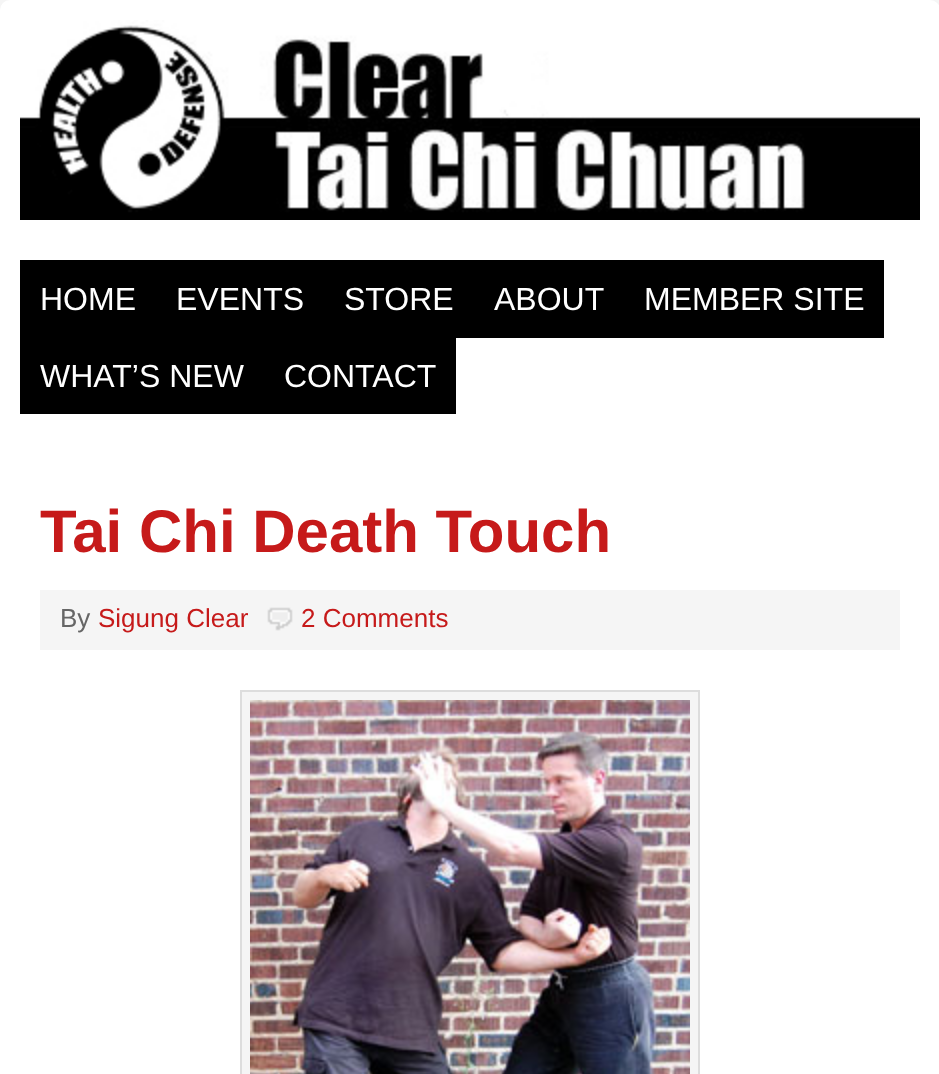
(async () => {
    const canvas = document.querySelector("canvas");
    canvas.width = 939;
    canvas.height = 1074;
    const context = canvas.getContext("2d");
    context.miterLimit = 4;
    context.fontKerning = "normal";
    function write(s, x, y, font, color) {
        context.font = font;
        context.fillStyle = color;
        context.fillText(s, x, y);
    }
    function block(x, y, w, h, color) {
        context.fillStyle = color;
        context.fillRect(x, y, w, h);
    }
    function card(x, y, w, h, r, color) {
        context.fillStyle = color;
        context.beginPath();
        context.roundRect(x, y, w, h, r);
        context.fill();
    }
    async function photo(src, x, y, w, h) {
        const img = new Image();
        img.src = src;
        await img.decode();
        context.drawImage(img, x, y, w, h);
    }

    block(0, 0, 939, 1074, "rgb(245, 245, 245)");
    card(0, 0, 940, 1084, 10, "rgb(255, 255, 255)");
    await photo("media/1.png", 20, 20, 900, 200);
    block(20, 260, 864, 78, "rgb(0, 0, 0)");
    write("HOME", 40, 310, "32px Liberation Sans", "rgb(255, 255, 255)");
    write("EVENTS", 176, 310, "32px Liberation Sans", "rgb(255, 255, 255)");
    write("STORE", 344, 310, "32px Liberation Sans", "rgb(255, 255, 255)");
    write("ABOUT", 494, 310, "32px Liberation Sans", "rgb(255, 255, 255)");
    write("MEMBER SITE", 644, 310, "32px Liberation Sans", "rgb(255, 255, 255)");
    block(20, 338, 436, 76, "rgb(0, 0, 0)");
    write("WHAT’S NEW", 40, 387, "32px Liberation Sans", "rgb(255, 255, 255)");
    write("CONTACT", 284, 387, "32px Liberation Sans", "rgb(255, 255, 255)");
    write("Tai Chi Death Touch", 40, 552, "bold 60px Liberation Sans", "rgb(198, 26, 26)");
    block(40, 590, 860, 60, "rgb(245, 245, 245)");
    write("By", 60, 627, "26px Liberation Sans", "rgb(102, 102, 102)");
    write("Sigung Clear", 98, 627, "26px Liberation Sans", "rgb(198, 26, 26)");
    await photo("media/2.png", 267, 607, 26, 24);
    write("2 Comments", 301, 627, "26px Liberation Sans", "rgb(198, 26, 26)");
    context.fillStyle = "rgb(245, 245, 245)";
    context.beginPath();
    context.rect(241, 691, 458, 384);
    context.fill();
    context.strokeStyle = "rgb(221, 221, 221)";
    context.lineWidth = 2;
    context.stroke();
    await photo("media/3.png", 250, 700, 440, 374);
})();
